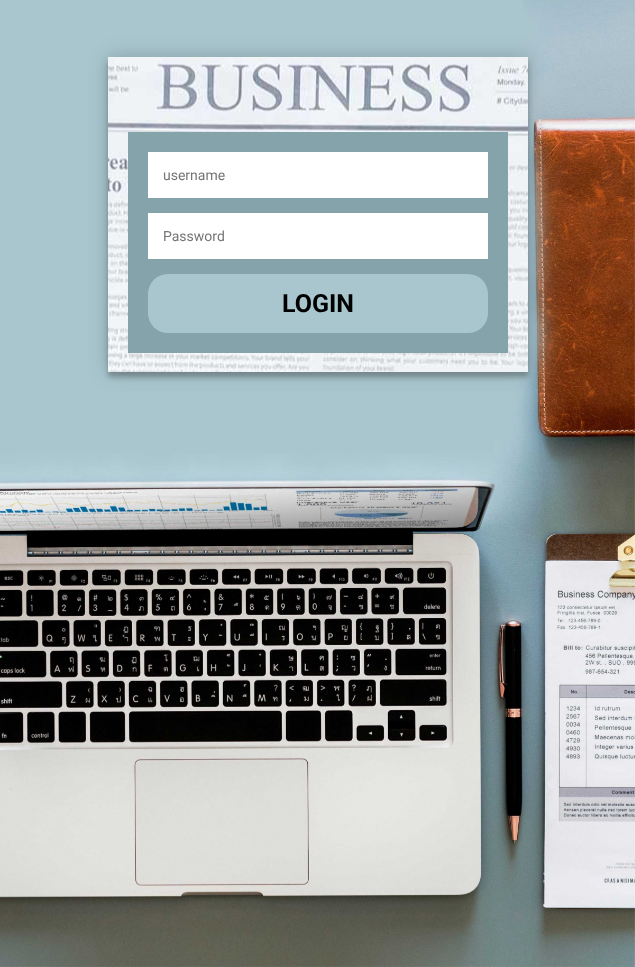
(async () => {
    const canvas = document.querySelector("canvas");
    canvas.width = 635;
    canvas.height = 967;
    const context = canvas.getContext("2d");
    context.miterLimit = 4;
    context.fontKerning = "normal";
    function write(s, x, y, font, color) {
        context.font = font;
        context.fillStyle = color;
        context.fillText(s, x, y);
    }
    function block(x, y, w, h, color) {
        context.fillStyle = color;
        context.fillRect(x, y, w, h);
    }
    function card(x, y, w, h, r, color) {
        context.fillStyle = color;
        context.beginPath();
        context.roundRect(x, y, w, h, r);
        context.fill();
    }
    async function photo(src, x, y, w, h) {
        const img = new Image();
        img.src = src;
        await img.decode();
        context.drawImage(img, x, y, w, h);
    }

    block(0, 0, 635, 967, "rgb(255, 255, 255)");
    await photo("media/1.png", 0, 0, 635, 967);
    context.fillStyle = "rgba(0, 0, 0, 0.24)";
    context.filter = "blur(2.5px)";
    context.beginPath();
    context.rect(108, 62, 420, 315);
    context.fill();
    context.filter = "none";
    context.fillStyle = "rgba(0, 0, 0, 0.2)";
    context.filter = "blur(10px)";
    context.beginPath();
    context.rect(108, 57, 420, 315);
    context.fill();
    context.filter = "none";
    await photo("media/2.png", 108, 57, 420, 315);
    block(128, 132, 380, 221, "rgb(133, 163, 171)");
    block(148, 152, 340, 46, "rgb(255, 255, 255)");
    write("username", 163, 180, "14px Roboto", "rgb(117, 117, 117)");
    block(148, 213, 340, 46, "rgb(255, 255, 255)");
    write("Password", 163, 241, "14px Roboto", "rgb(117, 117, 117)");
    card(148, 274, 340, 59, 20, "rgb(169, 198, 206)");
    write("LOGIN", 282, 312, "bold 25px Roboto", "rgb(0, 0, 0)");
})();
